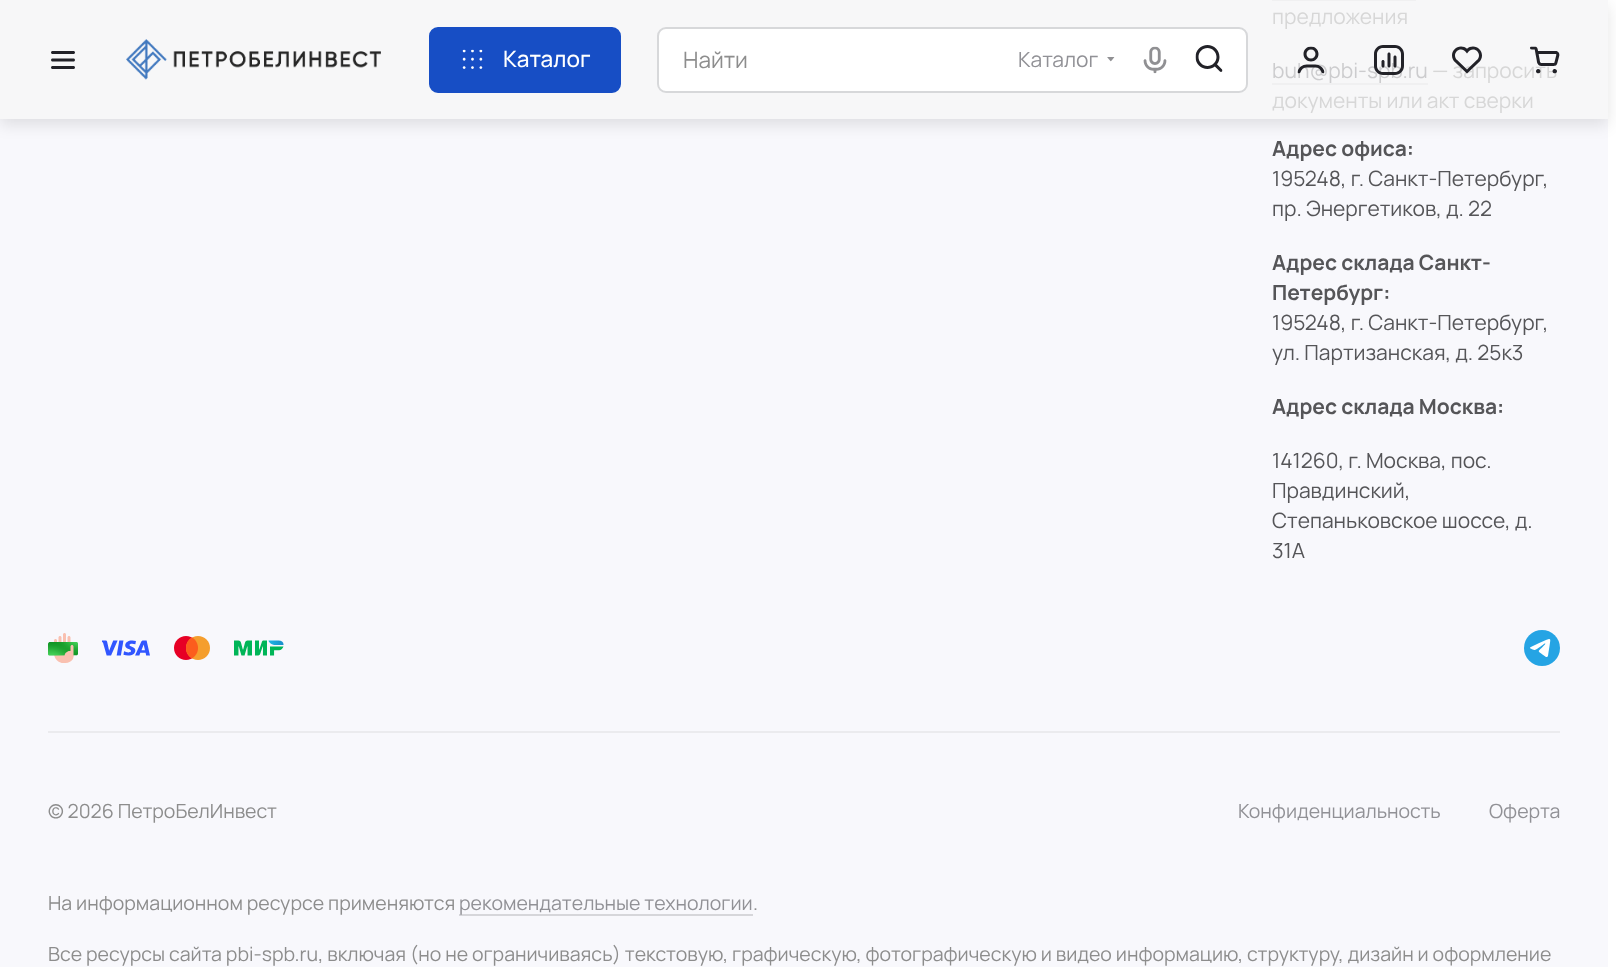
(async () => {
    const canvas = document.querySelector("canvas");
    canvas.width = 1616;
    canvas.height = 967;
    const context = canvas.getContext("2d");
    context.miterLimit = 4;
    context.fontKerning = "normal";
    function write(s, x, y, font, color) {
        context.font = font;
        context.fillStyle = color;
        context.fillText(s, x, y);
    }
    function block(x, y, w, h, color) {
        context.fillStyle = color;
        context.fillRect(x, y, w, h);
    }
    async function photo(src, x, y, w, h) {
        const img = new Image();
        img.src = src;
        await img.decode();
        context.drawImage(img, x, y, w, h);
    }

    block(0, 0, 1616, 967, "rgb(255, 255, 255)");
    block(0, 119, 1608, 848, "rgb(248, 248, 252)");
    block(0, 0, 1608, 119, "rgb(247, 247, 248)");
    block(1272, 0, 144, 1, "rgb(240, 240, 241)");
    write("предложения", 1272, 24, "200 21px Manrope", "rgb(215, 215, 215)");
    block(1272, 83, 156, 2, "rgb(240, 240, 241)");
    write("buh@pbi-spb.ru", 1272, 78, "200 21px Manrope", "rgb(204, 204, 206)");
    write("— запросить", 1432, 78, "200 21px Manrope", "rgb(215, 215, 215)");
    write("документы или акт сверки", 1272, 108, "200 21px Manrope", "rgb(215, 215, 215)");
    write("Адрес офиса:", 1272, 156, "200 21px 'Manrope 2'", "rgb(85, 85, 88)");
    write("195248, г. Санкт-Петербург,", 1272, 186, "200 21px Manrope", "rgb(85, 85, 88)");
    write("пр. Энергетиков, д. 22", 1272, 216, "200 21px Manrope", "rgb(85, 85, 88)");
    write("Адрес склада Санкт-", 1272, 270, "200 21px 'Manrope 2'", "rgb(85, 85, 88)");
    write("Петербург:", 1272, 300, "200 21px 'Manrope 2'", "rgb(85, 85, 88)");
    write("195248, г. Санкт-Петербург,", 1272, 330, "200 21px Manrope", "rgb(85, 85, 88)");
    write("ул. Партизанская, д. 25к3", 1272, 360, "200 21px Manrope", "rgb(85, 85, 88)");
    write("Адрес склада Москва:", 1272, 414, "200 21px 'Manrope 2'", "rgb(85, 85, 88)");
    write("141260, г. Москва, пос.", 1272, 468, "200 21px Manrope", "rgb(85, 85, 88)");
    write("Правдинский,", 1272, 498, "200 21px Manrope", "rgb(85, 85, 88)");
    write("Степаньковское шоссе, д.", 1272, 528, "200 21px Manrope", "rgb(85, 85, 88)");
    write("31А", 1272, 558, "200 21px Manrope", "rgb(85, 85, 88)");
    await photo("media/1.png", 48, 633, 30, 30);
    await photo("media/2.png", 102, 640, 48, 16);
    await photo("media/3.png", 174, 636, 36, 24);
    await photo("media/4.png", 234, 640, 50, 16);
    await photo("media/5.png", 1524, 630, 36, 36);
    block(48, 731, 1512, 2, "rgb(235, 235, 238)");
    write("© 2026 ПетроБелИнвест", 48, 818, "200 19.5px Manrope", "rgb(141, 141, 141)");
    write("Конфиденциальность", 1238, 818, "200 19.5px Manrope", "rgb(145, 145, 150)");
    write("Оферта", 1489, 818, "200 19.5px Manrope", "rgb(145, 145, 150)");
    write("На информационном ресурсе применяются", 48, 910, "200 19.5px Manrope", "rgb(141, 141, 141)");
    block(459, 914, 294, 2, "rgb(214, 214, 218)");
    write("рекомендательные технологии", 459, 910, "200 19.5px Manrope", "rgb(145, 145, 150)");
    write(".", 753, 910, "200 19.5px Manrope", "rgb(141, 141, 141)");
    write("Все ресурсы сайта pbi-spb.ru, включая (но не ограничиваясь) текстовую, графическую, фотографическую и видео информацию, структуру, дизайн и оформление", 48, 961, "200 19.5px Manrope", "rgb(141, 141, 141)");
    context.save();
    context.beginPath();
    context.moveTo(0, 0);
    context.lineTo(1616, 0);
    context.lineTo(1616, 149);
    context.lineTo(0, 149);
    context.closePath();
    context.moveTo(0, 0);
    context.lineTo(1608, 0);
    context.lineTo(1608, 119);
    context.lineTo(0, 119);
    context.closePath();
    context.clip("evenodd");
    context.fillStyle = "rgba(0, 0, 0, 0.1)";
    context.filter = "blur(7.5px)";
    context.beginPath();
    context.rect(0, 6, 1608, 119);
    context.fill();
    context.filter = "none";
    context.restore();
    await photo("media/6.png", 51, 51, 24, 18);
    await photo("media/7.png", 126, 39, 255, 41);
    context.fillStyle = "rgb(23, 78, 197)";
    context.beginPath();
    context.roundRect(430, 28, 190, 64, 8);
    context.fill();
    context.strokeStyle = "rgb(23, 78, 197)";
    context.lineWidth = 2;
    context.stroke();
    await photo("media/8.png", 462, 49, 21, 20);
    write("Каталог", 503, 67, "200 22.5px 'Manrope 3'", "rgb(255, 255, 255)");
    context.beginPath();
    context.roundRect(658, 28, 589, 64, 8);
    context.fill();
    context.strokeStyle = "rgb(215, 216, 218)";
    context.stroke();
    write("Найти", 683, 68, "200 22.5px Manrope", "rgb(141, 141, 141)");
    write("Каталог", 1018, 67, "200 21px Manrope", "rgb(145, 145, 150)");
    await photo("media/9.png", 1107, 57, 8, 5);
    await photo("media/10.png", 1143, 46, 24, 28);
    await photo("media/11.png", 1195, 45, 28, 27);
    await photo("media/12.png", 1297, 46, 28, 28);
    await photo("media/13.png", 1374, 45, 30, 30);
    await photo("media/14.png", 1452, 46, 30, 28);
    await photo("media/15.png", 1530, 46, 30, 28);
})();
